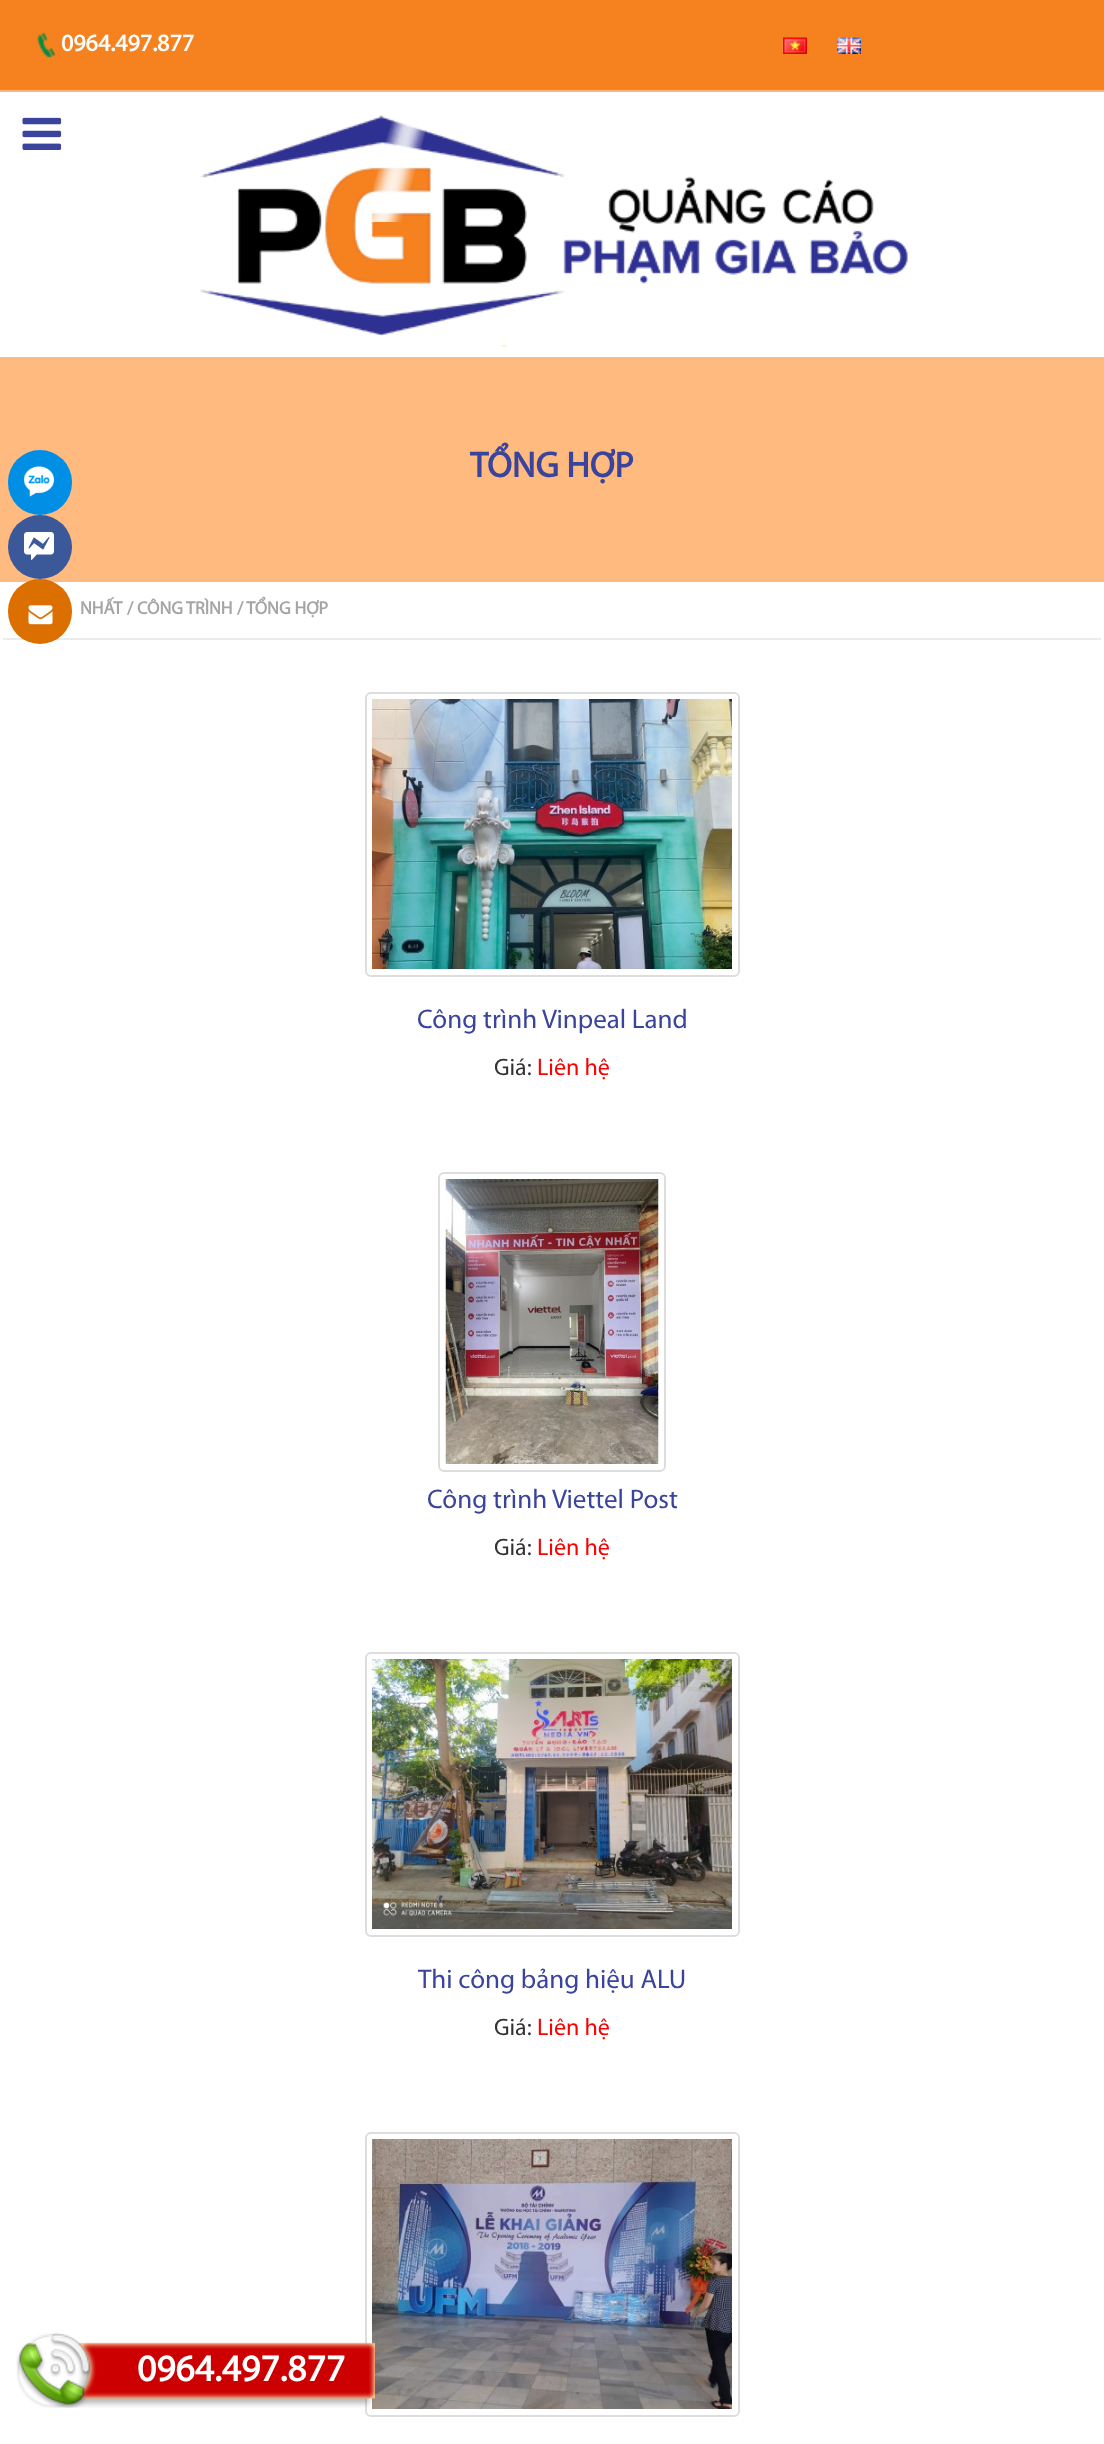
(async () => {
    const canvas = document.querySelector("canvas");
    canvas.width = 1104;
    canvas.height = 2444;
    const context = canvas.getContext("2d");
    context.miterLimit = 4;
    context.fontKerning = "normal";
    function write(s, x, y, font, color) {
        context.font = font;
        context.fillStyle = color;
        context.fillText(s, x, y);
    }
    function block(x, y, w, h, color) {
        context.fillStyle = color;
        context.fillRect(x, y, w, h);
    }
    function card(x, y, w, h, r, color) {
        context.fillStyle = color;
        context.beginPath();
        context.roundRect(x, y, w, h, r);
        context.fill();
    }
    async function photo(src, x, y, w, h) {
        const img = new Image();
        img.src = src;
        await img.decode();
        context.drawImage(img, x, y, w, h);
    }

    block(0, 0, 1104, 2444, "rgb(255, 255, 255)");
    block(0, 357, 1104, 225, "rgb(255, 186, 128)");
    card(8, 450, 64, 65, 32, "rgb(1, 143, 229)");
    await photo("media/1.png", 24, 466, 30, 31);
    context.fillStyle = "rgb(59, 89, 152)";
    context.beginPath();
    context.arc(40, 547, 32, 0, Math.PI * 2);
    context.fill();
    await photo("media/2.png", 24, 532, 30, 28);
    block(3, 638, 1098, 2, "rgb(235, 235, 235)");
    card(8, 579, 64, 65, 32, "rgb(219, 111, 0)");
    await photo("media/3.png", 28, 605, 25, 20);
    block(0, 0, 1104, 90, "rgb(245, 130, 31)");
    block(0, 90, 1104, 2, "rgb(249, 180, 121)");
    await photo("media/4.png", 37, 32, 19, 26);
    write("0964.497.877", 61, 51, "bold 24px Myriad", "rgb(255, 255, 255)");
    await photo("media/5.png", 783, 37, 24, 17);
    await photo("media/6.png", 837, 37, 24, 17);
    await photo("media/7.png", 22, 117, 40, 33);
    await photo("media/8.png", 199, 115, 709, 232);
    await photo("media/9.png", 371, 121, 54, 101);
    await photo("media/10.png", 371, 121, 54, 101);
    await photo("media/11.png", 372, 121, 53, 101);
    write("TỔNG HỢP", 470, 477, "bold 36px Myriad", "rgb(58, 68, 157)");
    write("NHẤT", 80, 614, "bold 18px Myriad", "rgb(165, 165, 165)");
    write("/ CÔNG TRÌNH", 127, 614, "bold 18px Myriad", "rgb(165, 165, 165)");
    write("/ TỔNG HỢP", 237, 614, "bold 18px Myriad", "rgb(165, 165, 165)");
    context.beginPath();
    context.roundRect(366, 693, 373, 283, 5);
    context.strokeStyle = "rgb(221, 221, 221)";
    context.lineWidth = 2;
    context.stroke();
    await photo("media/12.png", 372, 699, 360, 270);
    write("Công trình Vinpeal Land", 417, 1028, "27px Myriad", "rgb(58, 68, 157)");
    write("Giá:", 494, 1075, "24px Myriad", "rgb(51, 51, 51)");
    write("Liên hệ", 537, 1075, "24px Myriad", "rgb(255, 0, 0)");
    context.beginPath();
    context.roundRect(439, 1173, 226, 298, 5);
    context.stroke();
    await photo("media/13.png", 445, 1179, 214, 285);
    write("Công trình Viettel Post", 427, 1508, "27px Myriad", "rgb(58, 68, 157)");
    write("Giá:", 494, 1555, "24px Myriad", "rgb(51, 51, 51)");
    write("Liên hệ", 537, 1555, "24px Myriad", "rgb(255, 0, 0)");
    context.beginPath();
    context.roundRect(366, 1653, 373, 283, 5);
    context.stroke();
    await photo("media/14.png", 372, 1659, 360, 270);
    write("Thi công bảng hiệu ALU", 418, 1988, "27px Myriad", "rgb(58, 68, 157)");
    write("Giá:", 494, 2035, "24px Myriad", "rgb(51, 51, 51)");
    write("Liên hệ", 537, 2035, "24px Myriad", "rgb(255, 0, 0)");
    context.beginPath();
    context.roundRect(366, 2133, 373, 283, 5);
    context.stroke();
    await photo("media/15.png", 372, 2139, 360, 270);
    await photo("media/16.png", 16, 2332, 359, 76);
    write("0964.497.877", 137, 2381, "bold 37.5px Myriad", "rgb(255, 255, 255)");
})();
